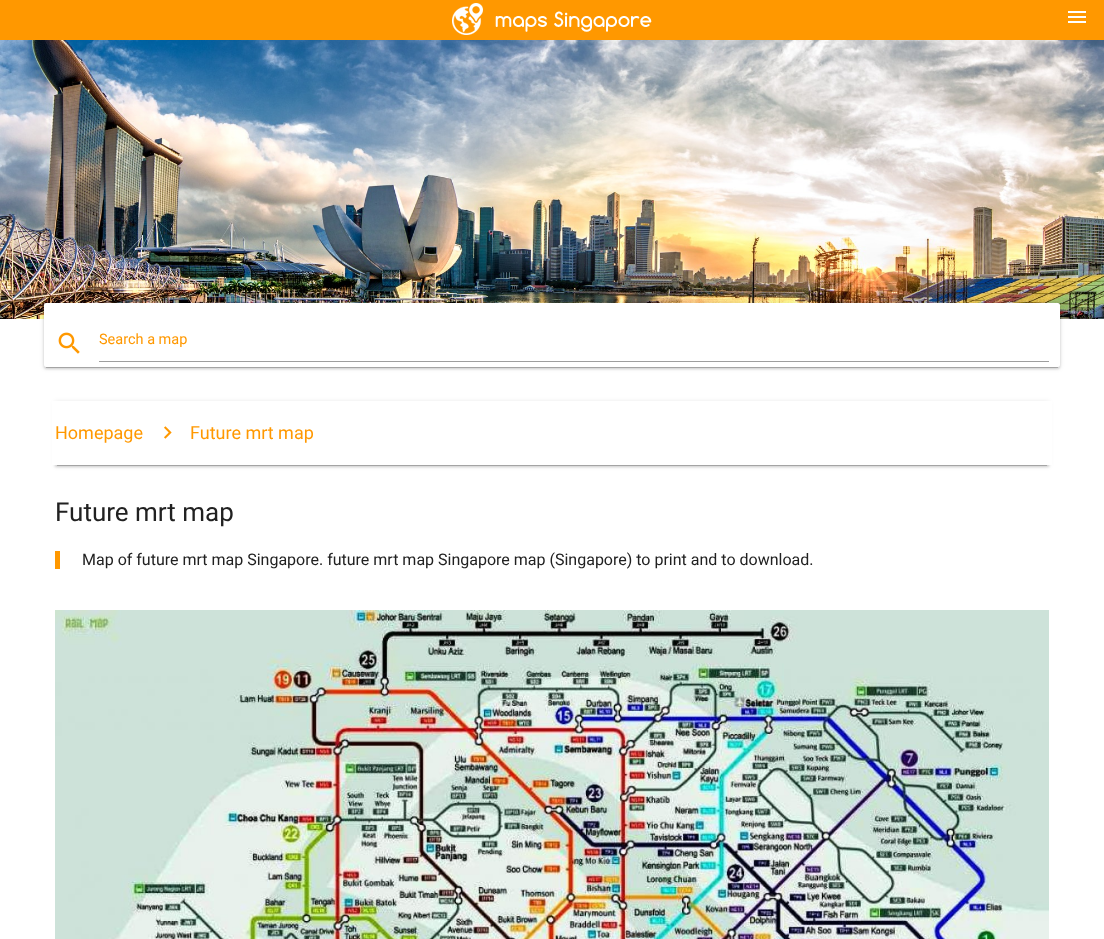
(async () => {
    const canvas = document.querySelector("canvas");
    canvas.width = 1104;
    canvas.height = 939;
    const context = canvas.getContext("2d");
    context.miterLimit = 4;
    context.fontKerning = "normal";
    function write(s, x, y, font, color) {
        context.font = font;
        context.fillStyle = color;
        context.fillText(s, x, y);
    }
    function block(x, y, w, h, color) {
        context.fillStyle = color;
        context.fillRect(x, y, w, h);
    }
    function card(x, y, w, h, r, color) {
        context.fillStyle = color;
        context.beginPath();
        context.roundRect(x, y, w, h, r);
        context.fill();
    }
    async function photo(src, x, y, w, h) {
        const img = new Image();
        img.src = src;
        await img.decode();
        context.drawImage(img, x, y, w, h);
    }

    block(0, 0, 1104, 939, "rgb(255, 255, 255)");
    block(0, 0, 1104, 40, "rgb(255, 152, 0)");
    await photo("media/1.png", 452, 3, 200, 32);
    await photo("media/2.png", 1068, 11, 18, 12);
    await photo("media/3.png", 0, 40, 1104, 279);
    context.fillStyle = "rgba(0, 0, 0, 0.2)";
    context.filter = "blur(0.5px)";
    context.beginPath();
    context.rect(46, 308, 1012, 60);
    context.fill();
    context.filter = "none";
    context.fillStyle = "rgba(0, 0, 0, 0.12)";
    context.filter = "blur(2.5px)";
    context.beginPath();
    context.roundRect(44, 304, 1016, 64, 2);
    context.fill();
    context.filter = "none";
    context.fillStyle = "rgba(0, 0, 0, 0.14)";
    context.filter = "blur(1px)";
    context.beginPath();
    context.roundRect(44, 305, 1016, 64, 2);
    context.fill();
    context.filter = "none";
    card(44, 303, 1016, 64, 2, "rgb(255, 255, 255)");
    await photo("media/4.png", 58, 332, 22, 22);
    write("Search a map", 99, 344, "14.5px Roboto", "rgb(255, 152, 0)");
    block(99, 361, 950, 1, "rgb(158, 158, 158)");
    context.fillStyle = "rgba(0, 0, 0, 0.2)";
    context.filter = "blur(0.5px)";
    context.beginPath();
    context.rect(57, 406, 990, 60);
    context.fill();
    context.filter = "none";
    context.fillStyle = "rgba(0, 0, 0, 0.12)";
    context.filter = "blur(2.5px)";
    context.beginPath();
    context.rect(55, 402, 994, 64);
    context.fill();
    context.filter = "none";
    context.fillStyle = "rgba(0, 0, 0, 0.14)";
    context.filter = "blur(1px)";
    context.beginPath();
    context.rect(55, 403, 994, 64);
    context.fill();
    context.filter = "none";
    block(52, 401, 1000, 64, "rgb(255, 255, 255)");
    write("Homepage", 55, 439, "18px Roboto", "rgb(255, 152, 0)");
    await photo("media/5.png", 164, 426, 8, 13);
    write("Future mrt map", 190, 439, "18px Roboto", "rgb(255, 152, 0)");
    write("Future mrt map", 55, 521, "26px Roboto", "rgb(33, 33, 33)");
    block(55, 551, 5, 18, "rgb(255, 152, 0)");
    write("Map of future mrt map Singapore. future mrt map Singapore map (Singapore) to print and to download.", 82, 565, "16px Roboto", "rgb(33, 33, 33)");
    await photo("media/6.png", 55, 610, 994, 329);
})();
